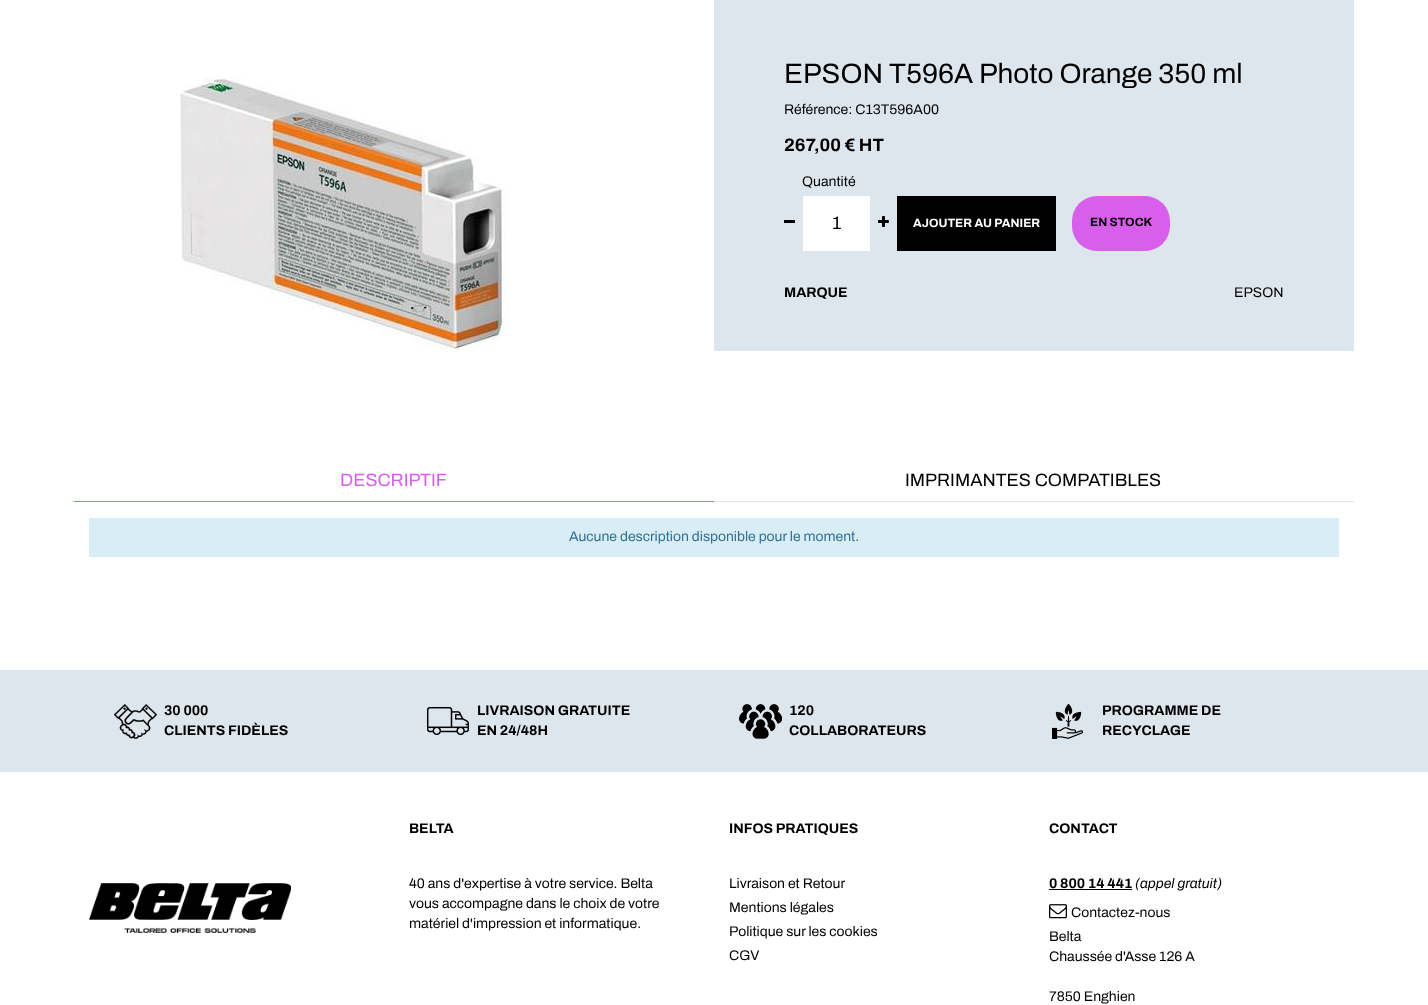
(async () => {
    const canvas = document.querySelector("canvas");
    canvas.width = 1428;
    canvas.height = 1005;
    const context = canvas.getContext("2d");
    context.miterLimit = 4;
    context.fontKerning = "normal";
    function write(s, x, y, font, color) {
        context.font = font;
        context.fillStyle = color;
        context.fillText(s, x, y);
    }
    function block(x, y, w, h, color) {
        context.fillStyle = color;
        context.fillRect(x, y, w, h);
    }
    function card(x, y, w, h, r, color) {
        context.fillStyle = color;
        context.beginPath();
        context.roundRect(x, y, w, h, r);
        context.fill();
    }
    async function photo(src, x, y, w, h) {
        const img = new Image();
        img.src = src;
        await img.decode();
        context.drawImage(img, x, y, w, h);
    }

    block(0, 0, 1428, 1005, "rgb(255, 255, 255)");
    await photo("media/1.png", 180, 78, 329, 273);
    block(714, 0, 640, 351, "rgb(221, 230, 237)");
    write("EPSON T596A Photo Orange 350 ml", 784, 83, "28px Archivo", "rgb(0, 0, 0)");
    write("Référence: C13T596A00", 784, 114, "14px Archivo", "rgb(0, 0, 0)");
    write("267,00 € HT", 784, 151, "bold 18px Archivo", "rgb(0, 0, 0)");
    write("Quantité", 802, 186, "14px Archivo", "rgb(0, 0, 0)");
    block(784, 220, 11, 3, "rgb(0, 0, 0)");
    block(803, 196, 67, 55, "rgb(255, 255, 255)");
    write("1", 832, 229, "18px Archivo", "rgb(0, 0, 0)");
    await photo("media/2.png", 878, 216, 11, 11);
    block(897, 196, 159, 55, "rgb(0, 0, 0)");
    write("AJOUTER AU PANIER", 913, 227, "bold 12px Archivo", "rgb(255, 255, 255)");
    card(1072, 196, 98, 55, 25, "rgb(216, 94, 236)");
    write("EN STOCK", 1090, 226, "bold 12px Archivo", "rgb(0, 0, 0)");
    write("MARQUE", 784, 297, "bold 14px Archivo", "rgb(0, 0, 0)");
    write("EPSON", 1234, 297, "14px Archivo", "rgb(0, 0, 0)");
    block(74, 501, 640, 1, "rgb(216, 94, 236)");
    write("DESCRIPTIF", 340, 486, "18px Archivo", "rgb(216, 94, 236)");
    block(714, 501, 640, 1, "rgb(221, 230, 237)");
    write("IMPRIMANTES COMPATIBLES", 905, 486, "18px Archivo", "rgb(0, 0, 0)");
    block(89, 518, 1250, 39, "rgb(217, 237, 247)");
    write("Aucune description disponible pour le moment.", 569, 541, "14px Archivo", "rgb(49, 112, 143)");
    block(0, 670, 1428, 102, "rgb(221, 230, 237)");
    await photo("media/3.png", 114, 704, 43, 35);
    write("30 000", 164, 715, "bold 14px Archivo", "rgb(0, 0, 0)");
    write("CLIENTS FIDÈLES", 164, 735, "bold 14px Archivo", "rgb(0, 0, 0)");
    await photo("media/4.png", 427, 707, 42, 28);
    write("LIVRAISON GRATUITE", 477, 715, "bold 14px Archivo", "rgb(0, 0, 0)");
    write("EN 24/48H", 477, 735, "bold 14px Archivo", "rgb(0, 0, 0)");
    await photo("media/5.png", 739, 704, 43, 35);
    write("120", 789, 715, "bold 14px Archivo", "rgb(0, 0, 0)");
    write("COLLABORATEURS", 789, 735, "bold 14px Archivo", "rgb(0, 0, 0)");
    await photo("media/6.png", 1052, 704, 31, 35);
    write("PROGRAMME DE", 1102, 715, "bold 14px Archivo", "rgb(0, 0, 0)");
    write("RECYCLAGE", 1102, 735, "bold 14px Archivo", "rgb(0, 0, 0)");
    await photo("media/7.png", 89, 883, 202, 50);
    write("BELTA", 409, 833, "bold 14px Archivo", "rgb(0, 0, 0)");
    write("40 ans d'expertise à votre service. Belta", 409, 888, "14px Archivo", "rgb(0, 0, 0)");
    write("vous accompagne dans le choix de votre", 409, 908, "14px Archivo", "rgb(0, 0, 0)");
    write("matériel d'impression et informatique.", 409, 928, "14px Archivo", "rgb(0, 0, 0)");
    write("INFOS PRATIQUES", 729, 833, "bold 14px Archivo", "rgb(0, 0, 0)");
    write("Livraison et Retour", 729, 888, "14px Archivo", "rgb(0, 0, 0)");
    write("Mentions légales", 729, 912, "14px Archivo", "rgb(0, 0, 0)");
    write("Politique sur les cookies", 729, 936, "14px Archivo", "rgb(0, 0, 0)");
    write("CGV", 729, 960, "14px Archivo", "rgb(0, 0, 0)");
    write("CONTACT", 1049, 833, "bold 14px Archivo", "rgb(0, 0, 0)");
    write("0 800 14 441", 1049, 888, "bold 14px Archivo", "rgb(0, 0, 0)");
    block(1049, 889, 83, 1, "rgb(0, 0, 0)");
    write("(appel gratuit)", 1135, 888, "italic 14px Archivo", "rgb(0, 0, 0)");
    await photo("media/8.png", 1049, 904, 18, 15);
    write("Contactez-nous", 1071, 917, "14px Archivo", "rgb(0, 0, 0)");
    write("Belta", 1049, 941, "14px Archivo", "rgb(0, 0, 0)");
    write("Chaussée d'Asse 126 A", 1049, 961, "14px Archivo", "rgb(0, 0, 0)");
    write("7850 Enghien", 1049, 1001, "14px Archivo", "rgb(0, 0, 0)");
})();
